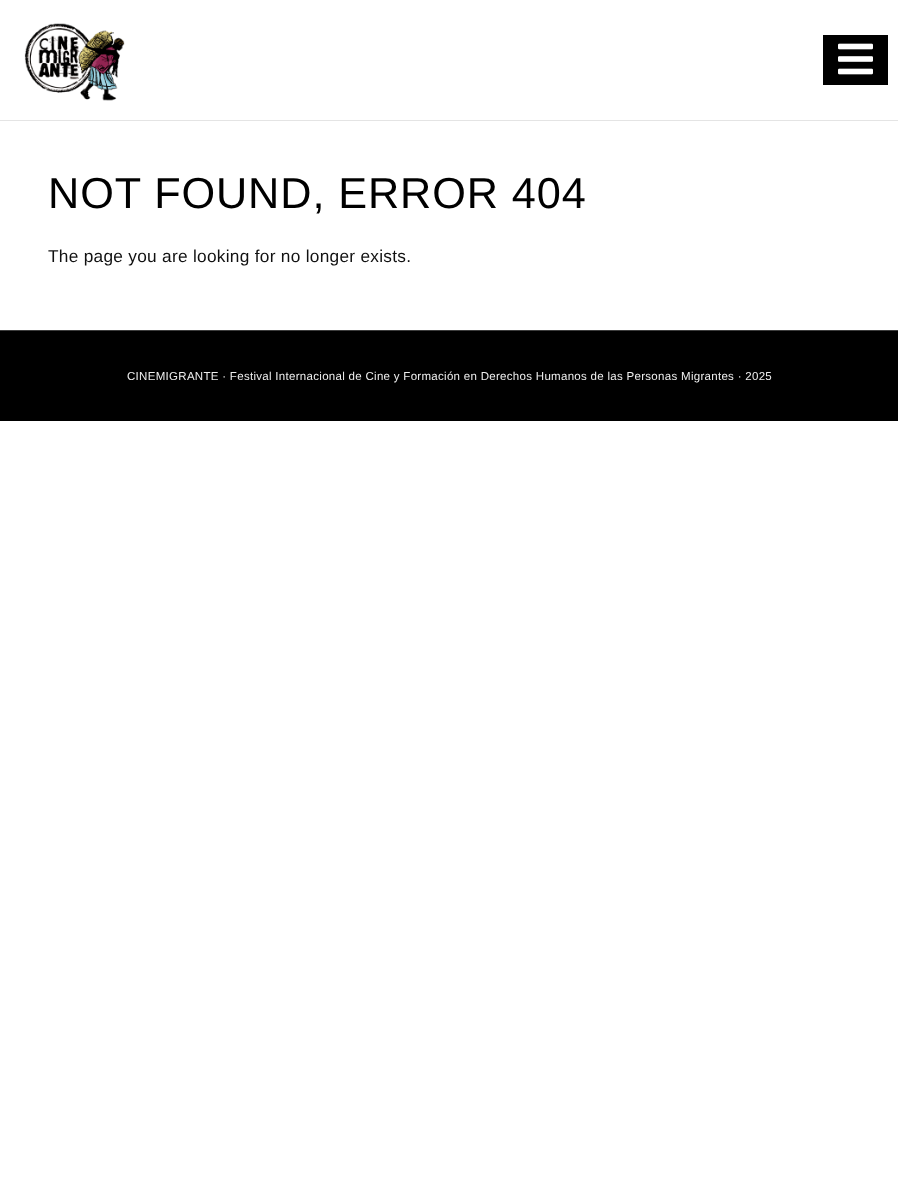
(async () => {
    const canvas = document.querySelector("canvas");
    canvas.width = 898;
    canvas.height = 1197;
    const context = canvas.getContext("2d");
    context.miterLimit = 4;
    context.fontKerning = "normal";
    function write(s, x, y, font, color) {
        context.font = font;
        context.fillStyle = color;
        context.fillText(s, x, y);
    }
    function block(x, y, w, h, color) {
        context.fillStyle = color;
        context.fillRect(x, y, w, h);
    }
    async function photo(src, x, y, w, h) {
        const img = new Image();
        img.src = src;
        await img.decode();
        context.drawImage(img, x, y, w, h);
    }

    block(0, 0, 898, 1197, "rgb(255, 255, 255)");
    block(0, 120, 898, 1, "rgb(228, 228, 228)");
    await photo("media/1.png", 24, 23, 101, 78);
    block(823, 35, 65, 50, "rgb(0, 0, 0)");
    await photo("media/2.png", 838, 43, 35, 32);
    context.letterSpacing = "0.9px";
    write("NOT FOUND, ERROR 404", 48, 208, "43.25px Liberation Sans", "rgb(0, 0, 0)");
    context.letterSpacing = "0.29px";
    write("The page you are looking for no longer exists.", 48, 262, "17.25px Liberation Sans", "rgb(17, 17, 17)");
    block(0, 331, 898, 90, "rgb(0, 0, 0)");
    block(0, 330, 898, 1, "rgb(61, 61, 61)");
    write("CINEMIGRANTE · Festival Internacional de Cine y Formación en Derechos Humanos de las Personas Migrantes · 2025", 127, 380, "11.52px Liberation Sans", "rgb(238, 238, 238)");
})();
